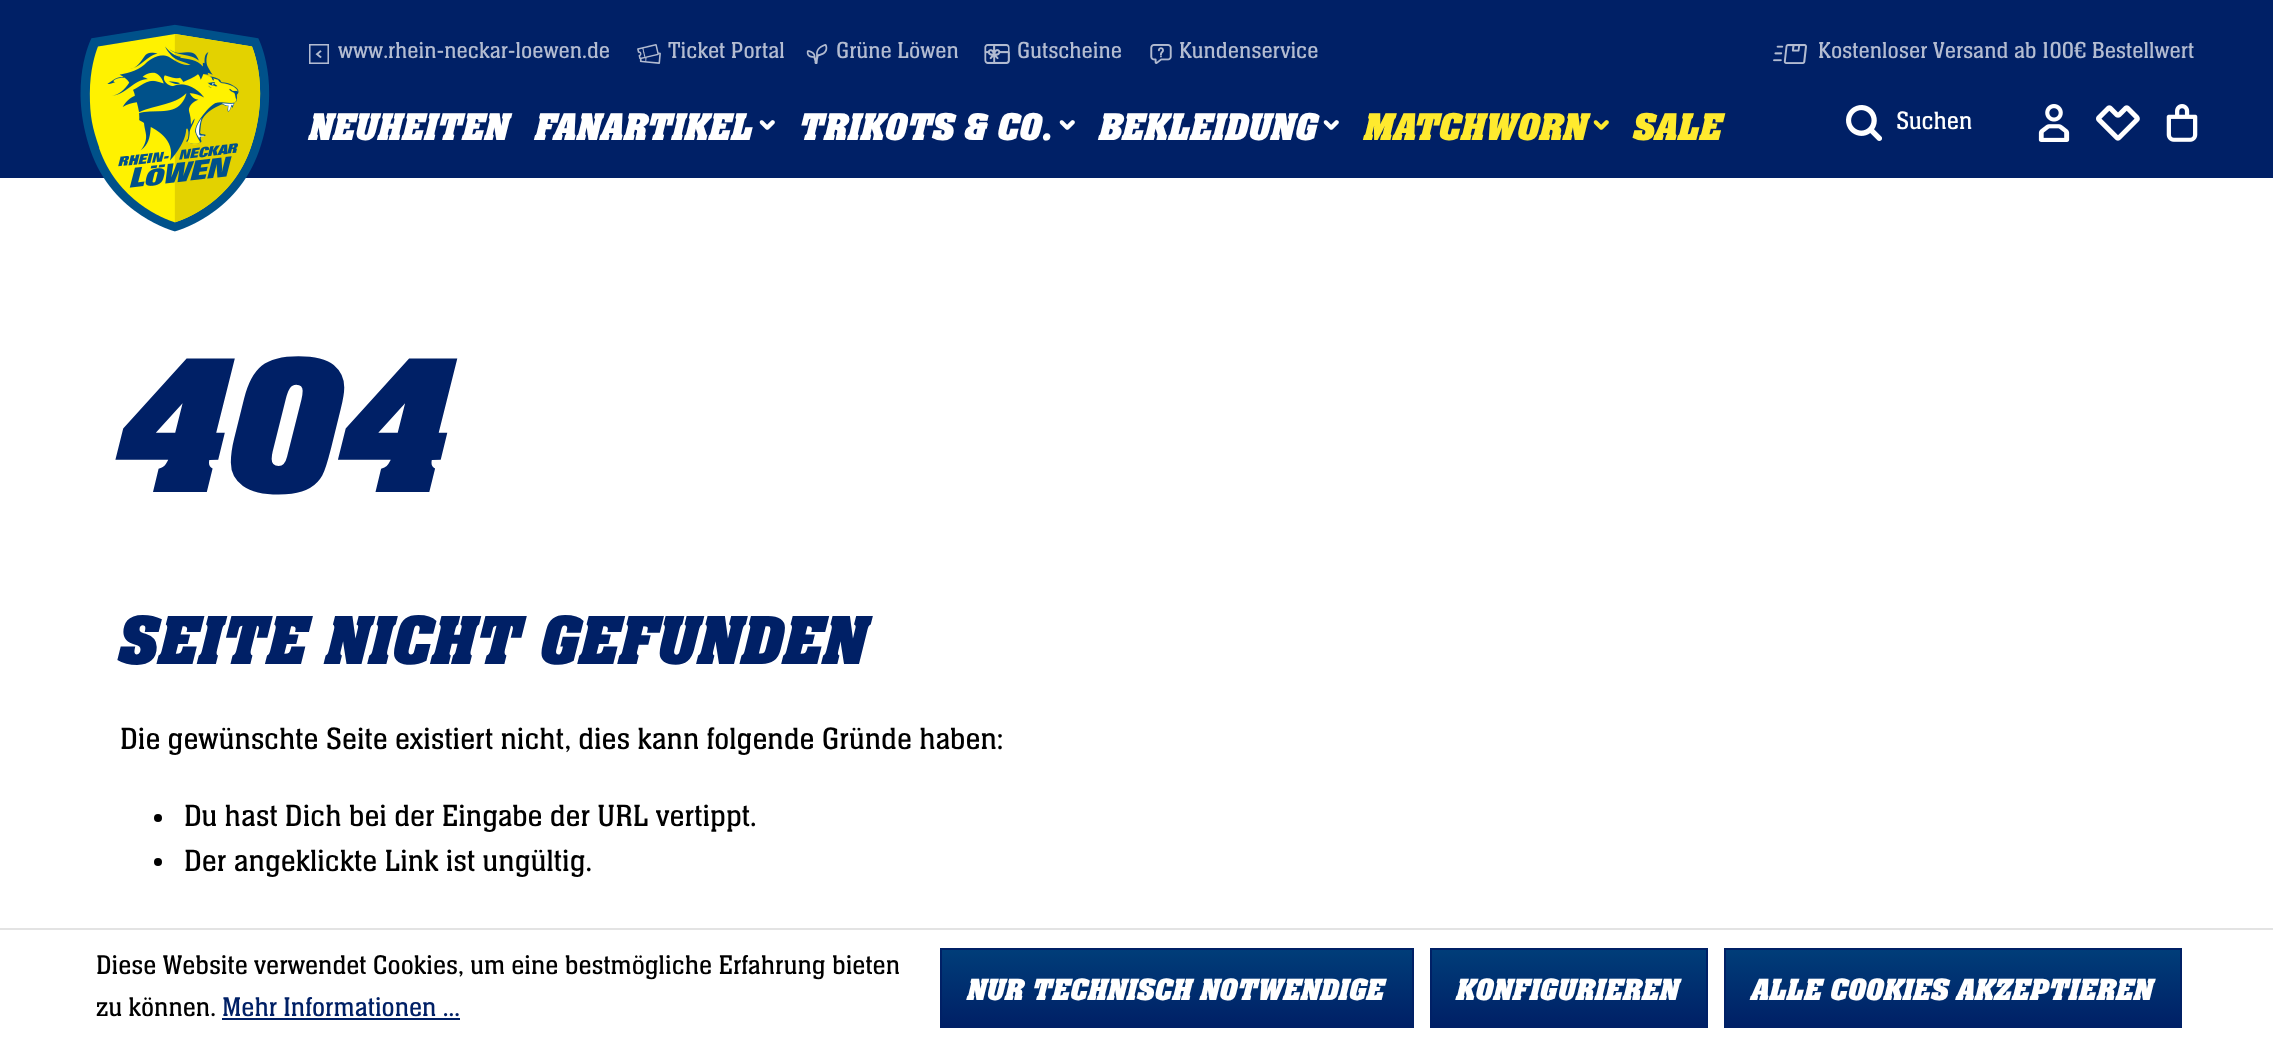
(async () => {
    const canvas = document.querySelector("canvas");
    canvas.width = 2273;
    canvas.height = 1045;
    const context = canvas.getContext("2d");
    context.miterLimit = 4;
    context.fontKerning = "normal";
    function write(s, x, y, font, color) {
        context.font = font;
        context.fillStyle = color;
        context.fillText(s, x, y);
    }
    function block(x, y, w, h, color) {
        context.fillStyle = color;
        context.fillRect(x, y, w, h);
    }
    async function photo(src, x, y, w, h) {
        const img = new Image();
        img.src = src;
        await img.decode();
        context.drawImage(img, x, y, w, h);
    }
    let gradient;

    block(0, 0, 2273, 1045, "rgb(255, 255, 255)");
    block(0, 0, 2273, 178, "rgb(0, 32, 102)");
    await photo("media/1.png", 309, 44, 20, 20);
    write("www.rhein-neckar-loewen.de", 338, 58, "24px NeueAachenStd", "rgb(179, 188, 209)");
    await photo("media/2.png", 637, 44, 24, 20);
    write("Ticket Portal", 668, 58, "24px NeueAachenStd", "rgb(179, 188, 209)");
    await photo("media/3.png", 806, 44, 22, 20);
    write("Grüne Löwen", 836, 58, "24px NeueAachenStd", "rgb(179, 188, 209)");
    await photo("media/4.png", 984, 44, 26, 20);
    write("Gutscheine", 1017, 58, "24px NeueAachenStd", "rgb(179, 188, 209)");
    await photo("media/5.png", 1150, 44, 22, 20);
    write("Kundenservice", 1179, 58, "24px NeueAachenStd", "rgb(179, 188, 209)");
    await photo("media/6.png", 1773, 44, 34, 20);
    write("Kostenloser Versand ab 100€ Bestellwert", 1818, 58, "24px NeueAachenStd", "rgb(179, 188, 209)");
    await photo("media/7.png", 80, 24, 190, 208);
    write("NEUHEITEN", 310, 140, "italic 40px NeueAachenStd", "rgb(255, 255, 255)");
    write("FANARTIKEL", 536, 140, "italic 40px NeueAachenStd", "rgb(255, 255, 255)");
    await photo("media/8.png", 759, 120, 16, 10);
    write("TRIKOTS & CO.", 800, 140, "italic 40px NeueAachenStd", "rgb(255, 255, 255)");
    await photo("media/8.png", 1059, 120, 16, 10);
    write("BEKLEIDUNG", 1100, 140, "italic 40px NeueAachenStd", "rgb(255, 255, 255)");
    await photo("media/8.png", 1323, 120, 16, 10);
    write("MATCHWORN", 1365, 140, "italic 40px NeueAachenStd", "rgb(255, 234, 46)");
    await photo("media/9.png", 1593, 120, 16, 10);
    write("SALE", 1634, 140, "italic 40px NeueAachenStd", "rgb(255, 234, 46)");
    await photo("media/10.png", 1846, 105, 36, 36);
    write("Suchen", 1896, 129, "26px NeueAachenStd", "rgb(255, 255, 255)");
    await photo("media/11.png", 2038, 104, 32, 38);
    await photo("media/12.png", 2096, 105, 44, 36);
    await photo("media/13.png", 2166, 104, 32, 38);
    write("404", 120, 492, "italic 200px NeueAachenStd", "rgb(0, 32, 102)");
    write("SEITE NICHT GEFUNDEN", 120, 664, "italic 72px NeueAachenStd", "rgb(0, 32, 102)");
    write("Die gewünschte Seite existiert nicht, dies kann folgende Gründe haben:", 120, 749, "32px NeueAachenStd", "rgb(0, 0, 0)");
    context.beginPath();
    context.arc(158, 818, 4, 0, Math.PI * 2);
    context.fill();
    write("Du hast Dich bei der Eingabe der URL vertippt.", 184, 826, "32px NeueAachenStd", "rgb(0, 0, 0)");
    context.beginPath();
    context.arc(158, 862, 4, 0, Math.PI * 2);
    context.fill();
    write("Der angeklickte Link ist ungültig.", 184, 871, "32px NeueAachenStd", "rgb(0, 0, 0)");
    block(0, 928, 2273, 2, "rgb(227, 227, 227)");
    write("Diese Website verwendet Cookies, um eine bestmögliche Erfahrung bieten", 96, 974, "28px NeueAachenStd", "rgb(0, 0, 0)");
    write("zu können.", 96, 1016, "28px NeueAachenStd", "rgb(0, 0, 0)");
    write("Mehr Informationen ...", 222, 1016, "28px NeueAachenStd", "rgb(0, 32, 102)");
    block(222, 1018, 238, 2, "rgb(0, 32, 102)");
    gradient = context.createLinearGradient(1177, 950, 1177, 1026);
    gradient.addColorStop(0, "rgb(0, 61, 121)");
    gradient.addColorStop(1, "rgb(0, 32, 102)");
    context.fillStyle = gradient;
    context.fillRect(942, 950, 470, 76);
    context.strokeStyle = "rgb(0, 32, 102)";
    context.lineWidth = 2;
    context.strokeRect(941, 949, 472, 78);
    write("NUR TECHNISCH NOTWENDIGE", 968, 1000, "italic 32px NeueAachenStd", "rgb(255, 255, 255)");
    gradient = context.createLinearGradient(1569, 950, 1569, 1026);
    gradient.addColorStop(0, "rgb(0, 61, 121)");
    gradient.addColorStop(1, "rgb(0, 32, 102)");
    context.fillStyle = gradient;
    context.fillRect(1432, 950, 274, 76);
    context.strokeRect(1431, 949, 276, 78);
    write("KONFIGURIEREN", 1457, 1000, "italic 32px NeueAachenStd", "rgb(255, 255, 255)");
    gradient = context.createLinearGradient(1953, 950, 1953, 1026);
    gradient.addColorStop(0, "rgb(0, 61, 121)");
    gradient.addColorStop(1, "rgb(0, 32, 102)");
    context.fillStyle = gradient;
    context.fillRect(1726, 950, 454, 76);
    context.strokeRect(1725, 949, 456, 78);
    write("ALLE COOKIES AKZEPTIEREN", 1752, 1000, "italic 32px NeueAachenStd", "rgb(255, 255, 255)");
})();
